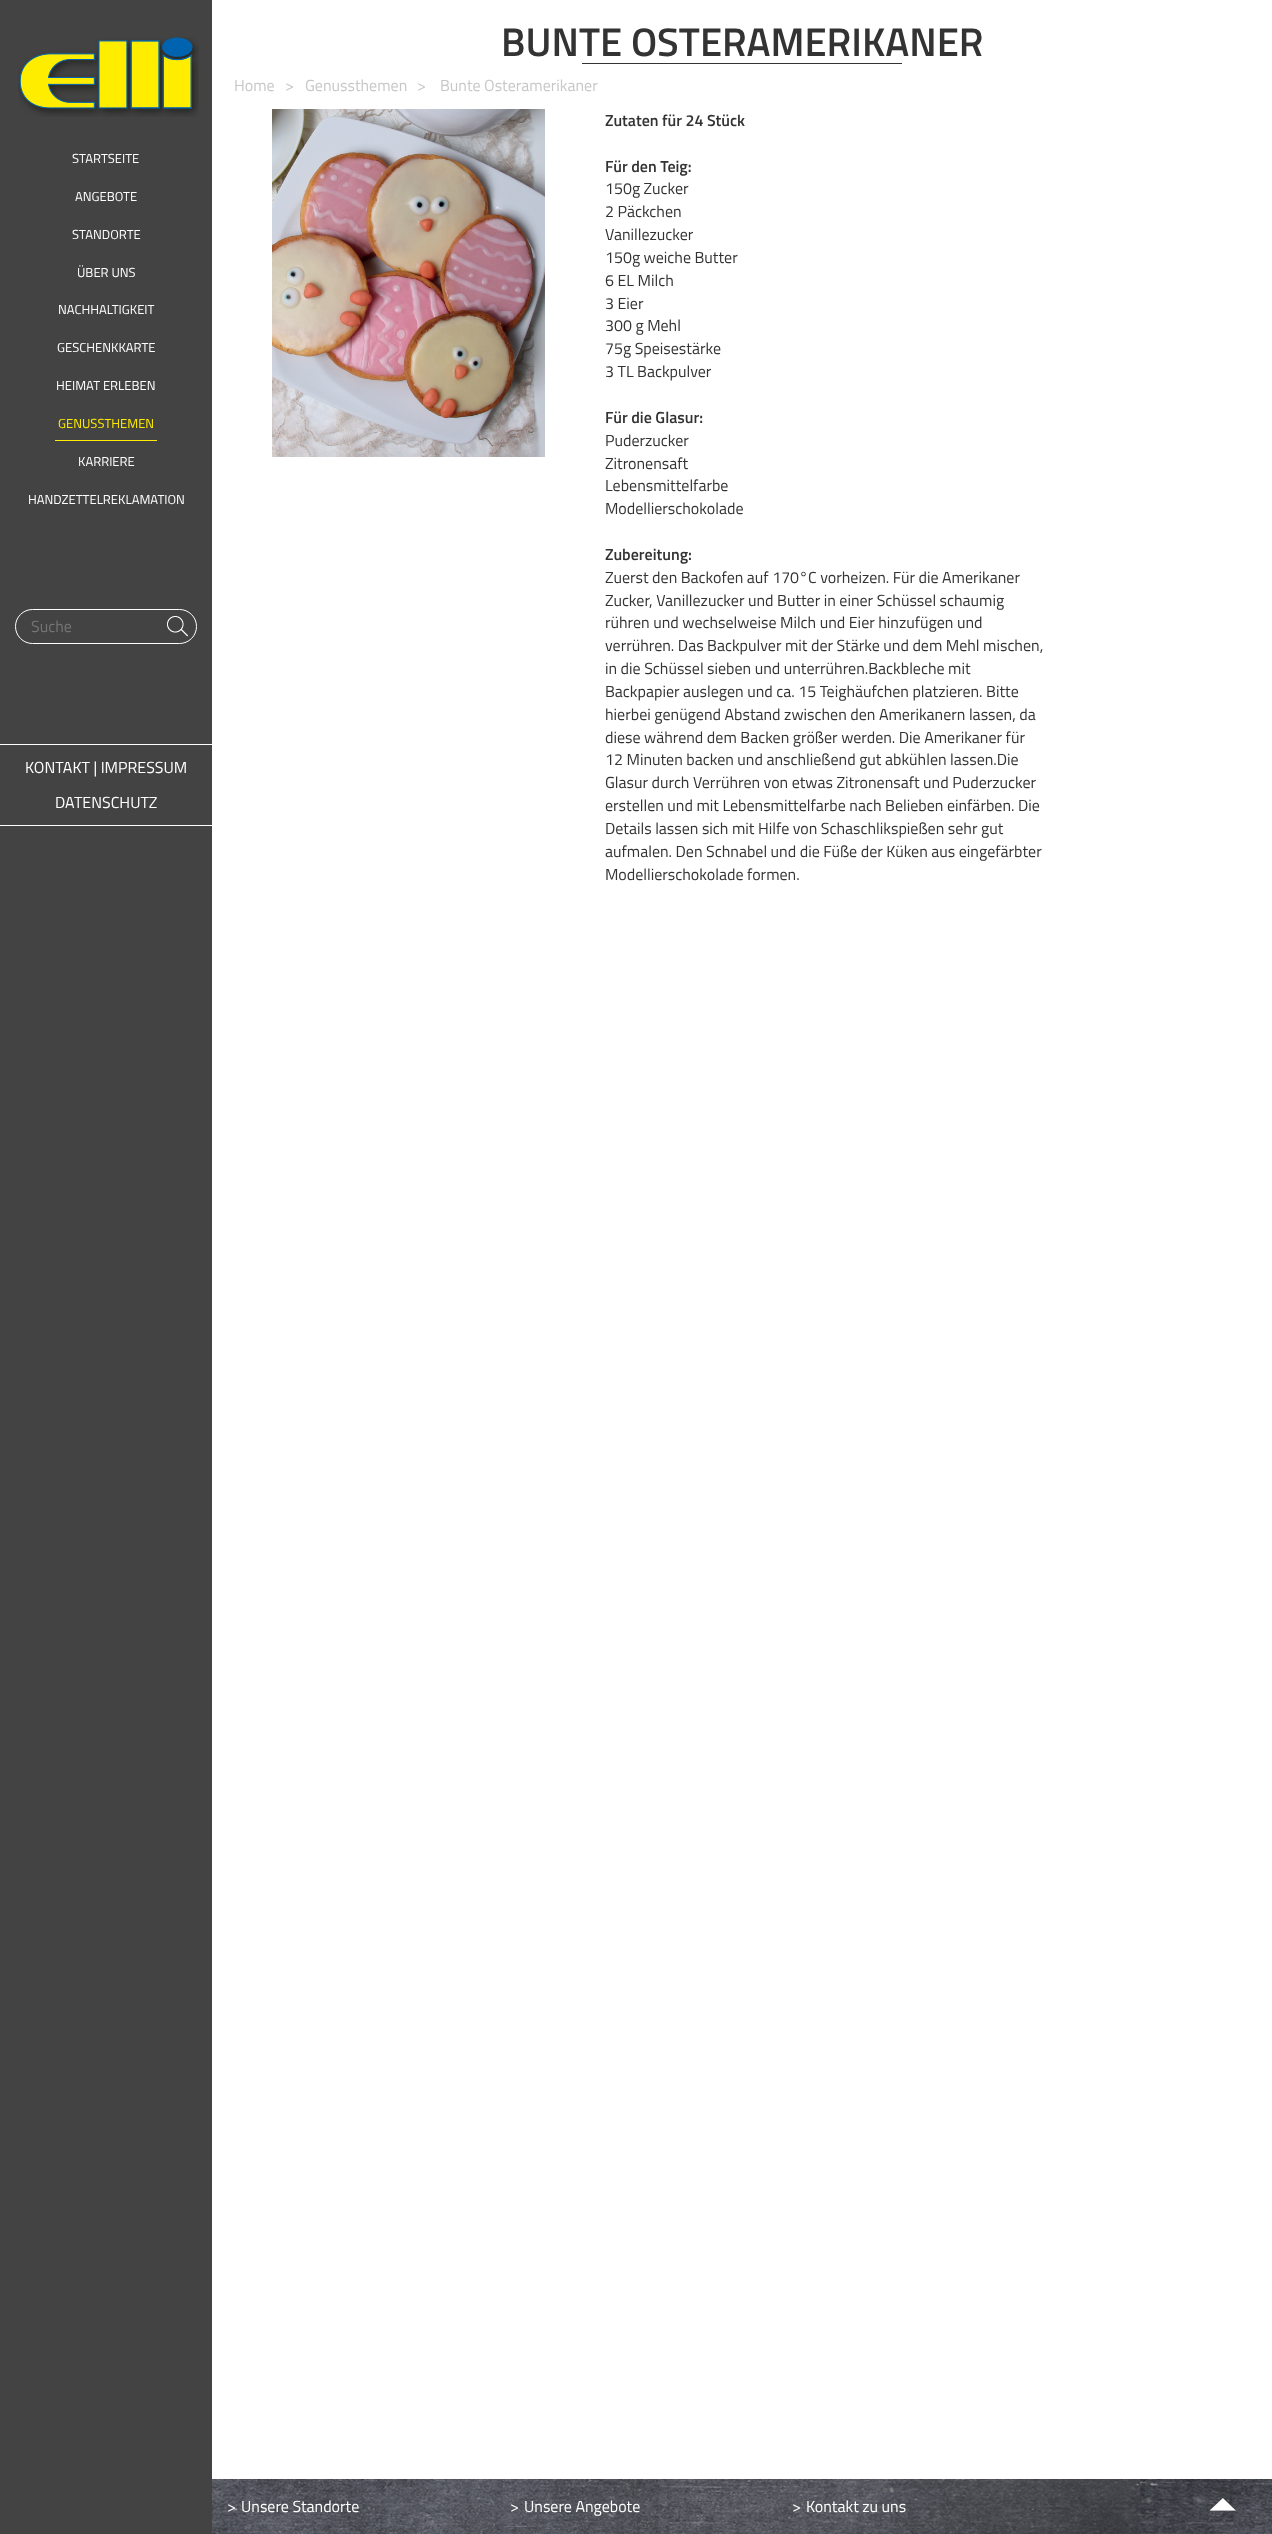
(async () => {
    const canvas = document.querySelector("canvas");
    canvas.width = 1272;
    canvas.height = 2534;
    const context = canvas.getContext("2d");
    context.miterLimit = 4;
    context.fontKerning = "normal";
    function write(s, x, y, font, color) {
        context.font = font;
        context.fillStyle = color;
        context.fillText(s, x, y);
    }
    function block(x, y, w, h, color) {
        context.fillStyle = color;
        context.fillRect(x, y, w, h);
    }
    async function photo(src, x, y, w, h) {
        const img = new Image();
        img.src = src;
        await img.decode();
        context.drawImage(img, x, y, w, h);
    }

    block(0, 0, 1272, 2534, "rgb(255, 255, 255)");
    block(0, 0, 212, 2534, "rgb(67, 67, 67)");
    await photo("media/1.png", 18, 37, 181, 80);
    write("STARTSEITE", 72, 163, "13px Titillium Web", "rgb(255, 255, 255)");
    write("ANGEBOTE", 75, 201, "13px Titillium Web", "rgb(255, 255, 255)");
    write("STANDORTE", 72, 239, "13px Titillium Web", "rgb(255, 255, 255)");
    write("ÜBER UNS", 77, 277, "13px Titillium Web", "rgb(255, 255, 255)");
    write("NACHHALTIGKEIT", 58, 314, "13px Titillium Web", "rgb(255, 255, 255)");
    write("GESCHENKKARTE", 57, 352, "13px Titillium Web", "rgb(255, 255, 255)");
    write("HEIMAT ERLEBEN", 56, 390, "13px Titillium Web", "rgb(255, 255, 255)");
    write("GENUSSTHEMEN", 58, 428, "13px Titillium Web", "rgb(255, 236, 0)");
    block(55, 440, 102, 1, "rgb(255, 236, 0)");
    write("KARRIERE", 78, 466, "13px Titillium Web", "rgb(255, 255, 255)");
    write("HANDZETTELREKLAMATION", 28, 504, "13px Titillium Web", "rgb(255, 255, 255)");
    context.beginPath();
    context.roundRect(15.5, 609.5, 181, 34, 17);
    context.strokeStyle = "rgb(255, 255, 255)";
    context.stroke();
    write("Suche", 31, 632, "16px Titillium Web", "rgb(117, 117, 117)");
    await photo("media/2.png", 167, 616, 21, 21);
    block(0, 744, 212, 1, "rgb(255, 255, 255)");
    block(0, 825, 212, 1, "rgb(255, 255, 255)");
    write("KONTAKT | IMPRESSUM", 25, 773, "16px Titillium Web", "rgb(255, 255, 255)");
    write("DATENSCHUTZ", 55, 808, "16px Titillium Web", "rgb(255, 255, 255)");
    write("BUNTE OSTERAMERIKANER", 501, 56, "600 40px Titillium Web", "rgb(51, 51, 51)");
    block(582, 63, 320, 1, "rgb(51, 51, 51)");
    write("Home", 234, 91, "16px Titillium Web", "rgb(199, 199, 199)");
    write(">", 285, 91, "16px Titillium Web", "rgb(199, 199, 199)");
    write("Genussthemen", 305, 91, "16px Titillium Web", "rgb(199, 199, 199)");
    write(">", 417, 91, "16px Titillium Web", "rgb(199, 199, 199)");
    write("Bunte Osteramerikaner", 440, 91, "16px Titillium Web", "rgb(199, 199, 199)");
    await photo("media/3.png", 272, 109, 273, 348);
    write("Zutaten für 24 Stück", 605, 126, "600 16px Titillium Web", "rgb(51, 51, 51)");
    write("Für den Teig:", 605, 172, "600 16px Titillium Web", "rgb(51, 51, 51)");
    write("150g Zucker", 605, 194, "16px Titillium Web", "rgb(51, 51, 51)");
    write("2 Päckchen", 605, 217, "16px Titillium Web", "rgb(51, 51, 51)");
    write("Vanillezucker", 605, 240, "16px Titillium Web", "rgb(51, 51, 51)");
    write("150g weiche Butter", 605, 263, "16px Titillium Web", "rgb(51, 51, 51)");
    write("6 EL Milch", 605, 286, "16px Titillium Web", "rgb(51, 51, 51)");
    write("3 Eier", 605, 309, "16px Titillium Web", "rgb(51, 51, 51)");
    write("300 g Mehl", 605, 331, "16px Titillium Web", "rgb(51, 51, 51)");
    write("75g Speisestärke", 605, 354, "16px Titillium Web", "rgb(51, 51, 51)");
    write("3 TL Backpulver", 605, 377, "16px Titillium Web", "rgb(51, 51, 51)");
    write("Für die Glasur:", 605, 423, "600 16px Titillium Web", "rgb(51, 51, 51)");
    write("Puderzucker", 605, 446, "16px Titillium Web", "rgb(51, 51, 51)");
    write("Zitronensaft", 605, 469, "16px Titillium Web", "rgb(51, 51, 51)");
    write("Lebensmittelfarbe", 605, 491, "16px Titillium Web", "rgb(51, 51, 51)");
    write("Modellierschokolade", 605, 514, "16px Titillium Web", "rgb(51, 51, 51)");
    write("Zubereitung:", 605, 560, "600 16px Titillium Web", "rgb(51, 51, 51)");
    write("Zuerst den Backofen auf 170°C vorheizen. Für die Amerikaner", 605, 583, "16px Titillium Web", "rgb(51, 51, 51)");
    write("Zucker, Vanillezucker und Butter in einer Schüssel schaumig", 605, 606, "16px Titillium Web", "rgb(51, 51, 51)");
    write("rühren und wechselweise Milch und Eier hinzufügen und", 605, 628, "16px Titillium Web", "rgb(51, 51, 51)");
    write("verrühren. Das Backpulver mit der Stärke und dem Mehl mischen,", 605, 651, "16px Titillium Web", "rgb(51, 51, 51)");
    write("in die Schüssel sieben und unterrühren.Backbleche mit", 605, 674, "16px Titillium Web", "rgb(51, 51, 51)");
    write("Backpapier auslegen und ca. 15 Teighäufchen platzieren. Bitte", 605, 697, "16px Titillium Web", "rgb(51, 51, 51)");
    write("hierbei genügend Abstand zwischen den Amerikanern lassen, da", 605, 720, "16px Titillium Web", "rgb(51, 51, 51)");
    write("diese während dem Backen größer werden. Die Amerikaner für", 605, 743, "16px Titillium Web", "rgb(51, 51, 51)");
    write("12 Minuten backen und anschließend gut abkühlen lassen.Die", 605, 765, "16px Titillium Web", "rgb(51, 51, 51)");
    write("Glasur durch Verrühren von etwas Zitronensaft und Puderzucker", 605, 788, "16px Titillium Web", "rgb(51, 51, 51)");
    write("erstellen und mit Lebensmittelfarbe nach Belieben einfärben. Die", 605, 811, "16px Titillium Web", "rgb(51, 51, 51)");
    write("Details lassen sich mit Hilfe von Schaschlikspießen sehr gut", 605, 834, "16px Titillium Web", "rgb(51, 51, 51)");
    write("aufmalen. Den Schnabel und die Füße der Küken aus eingefärbter", 605, 857, "16px Titillium Web", "rgb(51, 51, 51)");
    write("Modellierschokolade formen.", 605, 880, "16px Titillium Web", "rgb(51, 51, 51)");
    await photo("media/4.png", 212, 2479, 1060, 55);
    write(">", 227, 2512, "16px Titillium Web", "rgb(255, 255, 255)");
    write("Unsere Standorte", 241, 2512, "16px Titillium Web", "rgb(255, 255, 255)");
    write(">", 510, 2512, "16px Titillium Web", "rgb(255, 255, 255)");
    write("Unsere Angebote", 524, 2512, "16px Titillium Web", "rgb(255, 255, 255)");
    write(">", 792, 2512, "16px Titillium Web", "rgb(255, 255, 255)");
    write("Kontakt zu uns", 806, 2512, "16px Titillium Web", "rgb(255, 255, 255)");
    await photo("media/5.png", 1209, 2498, 27, 13);
})();
